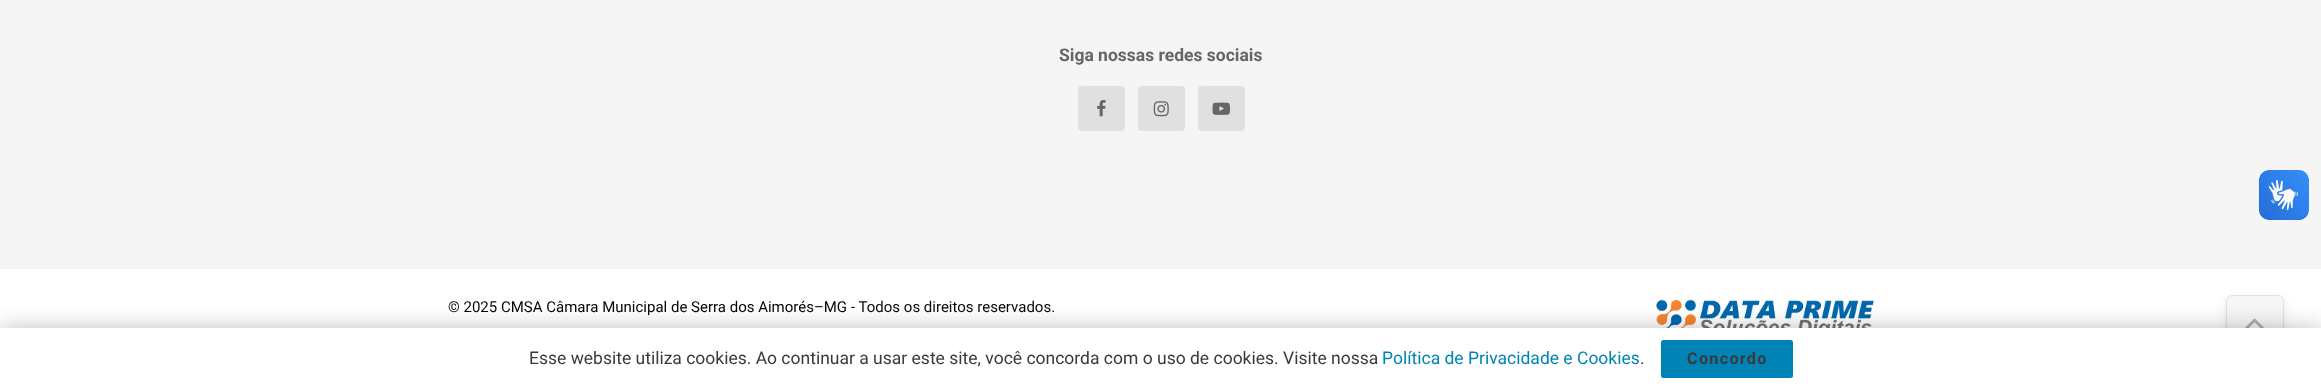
(async () => {
    const canvas = document.querySelector("canvas");
    canvas.width = 2321;
    canvas.height = 389;
    const context = canvas.getContext("2d");
    context.miterLimit = 4;
    context.fontKerning = "normal";
    function write(s, x, y, font, color) {
        context.font = font;
        context.fillStyle = color;
        context.fillText(s, x, y);
    }
    function block(x, y, w, h, color) {
        context.fillStyle = color;
        context.fillRect(x, y, w, h);
    }
    function card(x, y, w, h, r, color) {
        context.fillStyle = color;
        context.beginPath();
        context.roundRect(x, y, w, h, r);
        context.fill();
    }
    async function photo(src, x, y, w, h) {
        const img = new Image();
        img.src = src;
        await img.decode();
        context.drawImage(img, x, y, w, h);
    }

    block(0, 0, 2321, 389, "rgb(245, 245, 245)");
    write("Siga nossas redes sociais", 1059, 61, "bold 17.5px Roboto", "rgb(102, 102, 102)");
    card(1078, 86, 47, 45, 4, "rgb(224, 224, 224)");
    await photo("media/1.png", 1097, 100, 9, 17);
    card(1138, 86, 47, 45, 4, "rgb(224, 224, 224)");
    await photo("media/2.png", 1153, 101, 16, 16);
    card(1198, 86, 47, 45, 4, "rgb(224, 224, 224)");
    await photo("media/3.png", 1212, 102, 18, 13);
    block(0, 269, 2321, 59, "rgb(255, 255, 255)");
    write("© 2025", 448, 312, "15px Roboto", "rgb(10, 10, 10)");
    write("CMSA Câmara Municipal de Serra dos Aimorés–MG", 501, 312, "15px Roboto", "rgb(0, 10, 0)");
    write("- Todos os direitos reservados.", 851, 312, "15px Roboto", "rgb(10, 10, 10)");
    await photo("media/4.png", 1656, 299, 218, 29);
    context.save();
    context.beginPath();
    context.moveTo(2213, 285);
    context.lineTo(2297, 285);
    context.lineTo(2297, 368);
    context.lineTo(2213, 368);
    context.closePath();
    context.moveTo(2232, 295);
    context.lineTo(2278, 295);
    context.bezierCurveTo(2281.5, 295, 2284, 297.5, 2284, 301);
    context.lineTo(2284, 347);
    context.bezierCurveTo(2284, 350.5, 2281.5, 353, 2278, 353);
    context.lineTo(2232, 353);
    context.bezierCurveTo(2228.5, 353, 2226, 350.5, 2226, 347);
    context.lineTo(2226, 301);
    context.bezierCurveTo(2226, 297.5, 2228.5, 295, 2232, 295);
    context.closePath();
    context.clip("evenodd");
    context.fillStyle = "rgba(51, 51, 51, 0.1)";
    context.filter = "blur(4px)";
    context.beginPath();
    context.roundRect(2226, 298, 58, 57, 6);
    context.fill();
    context.filter = "none";
    context.restore();
    card(2226, 295, 58, 58, 6, "rgba(195, 195, 195, 0.15)");
    context.beginPath();
    context.roundRect(2226.5, 295.5, 57, 57, 5.5);
    context.strokeStyle = "rgba(51, 51, 51, 0.11)";
    context.stroke();
    await photo("media/5.png", 2244, 318, 21, 10);
    await photo("media/6.png", 2258, 170, 51, 50);
    await photo("media/7.png", 2259, 170, 50, 50);
    context.fillStyle = "rgba(0, 0, 0, 0.15)";
    context.filter = "blur(12.5px)";
    context.beginPath();
    context.rect(0, 330, 2321, 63);
    context.fill();
    context.filter = "none";
    context.filter = "blur(12.5px)";
    context.beginPath();
    context.rect(0, 330, 2321, 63);
    context.fill();
    context.filter = "none";
    block(0, 328, 2321, 61, "rgb(255, 255, 255)");
    write("Esse website utiliza cookies. Ao continuar a usar este site, você concorda com o uso de cookies. Visite nossa", 529, 364, "17.5px Roboto", "rgb(58, 58, 58)");
    write("Política de Privacidade e Cookies", 1382, 364, "17.5px Roboto", "rgb(0, 132, 181)");
    write(".", 1640, 364, "17.5px Roboto", "rgb(58, 58, 58)");
    card(1661, 340, 132, 38, 2.5, "rgb(0, 132, 181)");
    context.letterSpacing = "1.25px";
    write("Concordo", 1687, 364, "bold 16.25px Roboto", "rgb(58, 58, 58)");
})();
